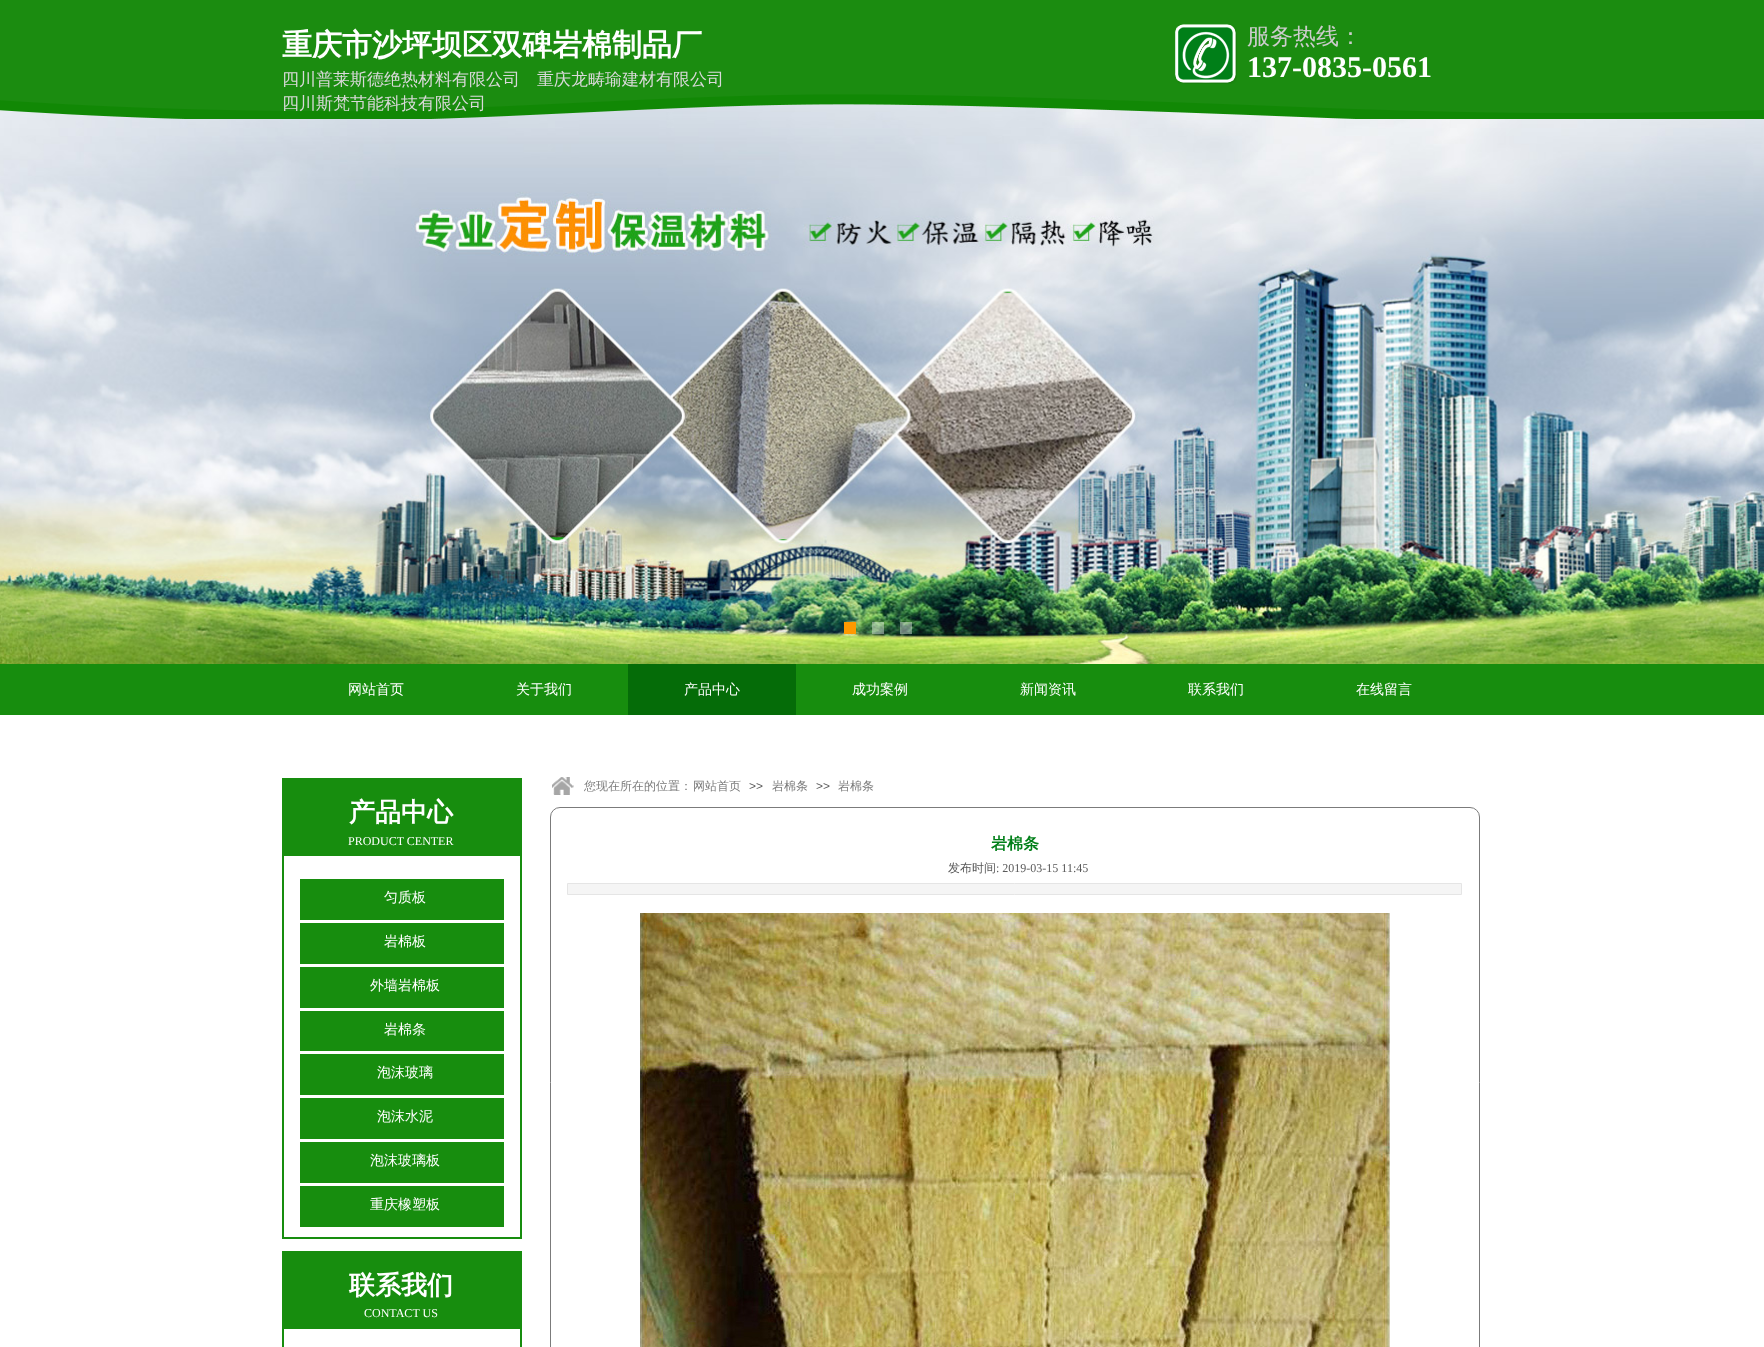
(async () => {
    const canvas = document.querySelector("canvas");
    canvas.width = 1764;
    canvas.height = 1347;
    const context = canvas.getContext("2d");
    context.miterLimit = 4;
    context.fontKerning = "normal";
    function write(s, x, y, font, color) {
        context.font = font;
        context.fillStyle = color;
        context.fillText(s, x, y);
    }
    function block(x, y, w, h, color) {
        context.fillStyle = color;
        context.fillRect(x, y, w, h);
    }
    async function photo(src, x, y, w, h) {
        const img = new Image();
        img.src = src;
        await img.decode();
        context.drawImage(img, x, y, w, h);
    }

    block(0, 0, 1764, 1347, "rgb(255, 255, 255)");
    await photo("media/3.png", 0, 104, 1764, 560);
    await photo("media/1.png", 0, 0, 1764, 119);
    write("重庆市沙坪坝区双碑岩棉制品厂", 282, 55, "bold 30px WenQuanYi Zen Hei", "rgb(255, 255, 255)");
    await photo("media/2.png", 1175, 24, 62, 60);
    write("服务热线：", 1247, 44, "500 23px WenQuanYi Zen Hei", "rgb(204, 204, 204)");
    write("137-0835-0561", 1247, 77, "bold 30px Liberation Serif", "rgb(255, 255, 255)");
    write("四川普莱斯德绝热材料有限公司", 282, 85, "500 17px WenQuanYi Zen Hei", "rgb(217, 217, 217)");
    write("重庆龙畴瑜建材有限公司", 537, 85, "500 17px WenQuanYi Zen Hei", "rgb(217, 217, 217)");
    write("四川斯梵节能科技有限公司", 282, 109, "500 17px WenQuanYi Zen Hei", "rgb(217, 217, 217)");
    block(844, 622, 12, 12, "rgb(255, 153, 0)");
    block(872, 622, 12, 12, "rgba(255, 255, 255, 0.4)");
    block(900, 622, 12, 12, "rgba(255, 255, 255, 0.4)");
    block(0, 664, 1764, 51, "rgb(23, 141, 14)");
    write("网站首页", 348, 694, "500 14px WenQuanYi Zen Hei", "rgb(255, 255, 255)");
    write("关于我们", 516, 694, "500 14px WenQuanYi Zen Hei", "rgb(255, 255, 255)");
    block(628, 664, 168, 51, "rgb(5, 108, 8)");
    write("产品中心", 684, 694, "500 14px WenQuanYi Zen Hei", "rgb(255, 255, 255)");
    write("成功案例", 852, 694, "500 14px WenQuanYi Zen Hei", "rgb(255, 255, 255)");
    write("新闻资讯", 1020, 694, "500 14px WenQuanYi Zen Hei", "rgb(255, 255, 255)");
    write("联系我们", 1188, 694, "500 14px WenQuanYi Zen Hei", "rgb(255, 255, 255)");
    write("在线留言", 1356, 694, "500 14px WenQuanYi Zen Hei", "rgb(255, 255, 255)");
    await photo("media/4.png", 552, 777, 22, 18);
    write("您现在所在的位置：", 584, 790, "500 12px WenQuanYi Zen Hei", "rgb(123, 123, 123)");
    write("网站首页", 693, 790, "500 12px WenQuanYi Zen Hei", "rgb(123, 123, 123)");
    write(">>", 749, 790, "12px Liberation Sans", "rgb(90, 90, 90)");
    write("岩棉条", 772, 790, "500 12px WenQuanYi Zen Hei", "rgb(123, 123, 123)");
    write(">>", 816, 790, "12px Liberation Sans", "rgb(90, 90, 90)");
    write("岩棉条", 838, 790, "500 12px WenQuanYi Zen Hei", "rgb(123, 123, 123)");
    block(520, 856, 2, 383, "rgb(23, 141, 14)");
    block(282, 1237, 240, 2, "rgb(23, 141, 14)");
    block(282, 856, 2, 383, "rgb(23, 141, 14)");
    block(282, 778, 240, 78, "rgb(23, 141, 14)");
    write("产品中心", 349, 821, "bold 26px WenQuanYi Zen Hei", "rgb(255, 255, 255)");
    write("PRODUCT CENTER", 348, 845, "12px Liberation Serif", "rgb(255, 255, 255)");
    block(300, 879, 204, 41, "rgb(23, 141, 14)");
    write("匀质板", 384, 902, "500 14px WenQuanYi Zen Hei", "rgb(255, 255, 255)");
    block(300, 923, 204, 41, "rgb(23, 141, 14)");
    write("岩棉板", 384, 946, "500 14px WenQuanYi Zen Hei", "rgb(255, 255, 255)");
    block(300, 967, 204, 41, "rgb(23, 141, 14)");
    write("外墙岩棉板", 370, 990, "500 14px WenQuanYi Zen Hei", "rgb(255, 255, 255)");
    block(300, 1011, 204, 40, "rgb(23, 141, 14)");
    write("岩棉条", 384, 1034, "500 14px WenQuanYi Zen Hei", "rgb(255, 255, 255)");
    block(300, 1054, 204, 41, "rgb(23, 141, 14)");
    write("泡沫玻璃", 377, 1077, "500 14px WenQuanYi Zen Hei", "rgb(255, 255, 255)");
    block(300, 1098, 204, 41, "rgb(23, 141, 14)");
    write("泡沫水泥", 377, 1121, "500 14px WenQuanYi Zen Hei", "rgb(255, 255, 255)");
    block(300, 1142, 204, 41, "rgb(23, 141, 14)");
    write("泡沫玻璃板", 370, 1165, "500 14px WenQuanYi Zen Hei", "rgb(255, 255, 255)");
    block(300, 1186, 204, 41, "rgb(23, 141, 14)");
    write("重庆橡塑板", 370, 1209, "500 14px WenQuanYi Zen Hei", "rgb(255, 255, 255)");
    context.beginPath();
    context.roundRect(550.5, 807.5, 929, 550, 9.5);
    context.strokeStyle = "rgb(123, 123, 123)";
    context.stroke();
    write("岩棉条", 991, 849, "bold 16px WenQuanYi Zen Hei", "rgb(0, 127, 24)");
    write("发布时间", 948, 872, "500 12px WenQuanYi Zen Hei", "rgb(90, 90, 90)");
    write(": 2019-03-15 11:45", 996, 872, "12px Liberation Serif", "rgb(90, 90, 90)");
    context.fillStyle = "rgb(245, 245, 245)";
    context.beginPath();
    context.rect(567.5, 883.5, 894, 11);
    context.fill();
    context.strokeStyle = "rgb(229, 229, 229)";
    context.stroke();
    await photo("media/5.png", 640, 913, 750, 434);
    block(520, 1329, 2, 18, "rgb(23, 141, 14)");
    block(282, 1329, 2, 18, "rgb(23, 141, 14)");
    block(282, 1251, 240, 78, "rgb(23, 141, 14)");
    write("联系我们", 349, 1294, "bold 26px WenQuanYi Zen Hei", "rgb(255, 255, 255)");
    write("CONTACT US", 364, 1317, "12px Liberation Serif", "rgb(255, 255, 255)");
})();
